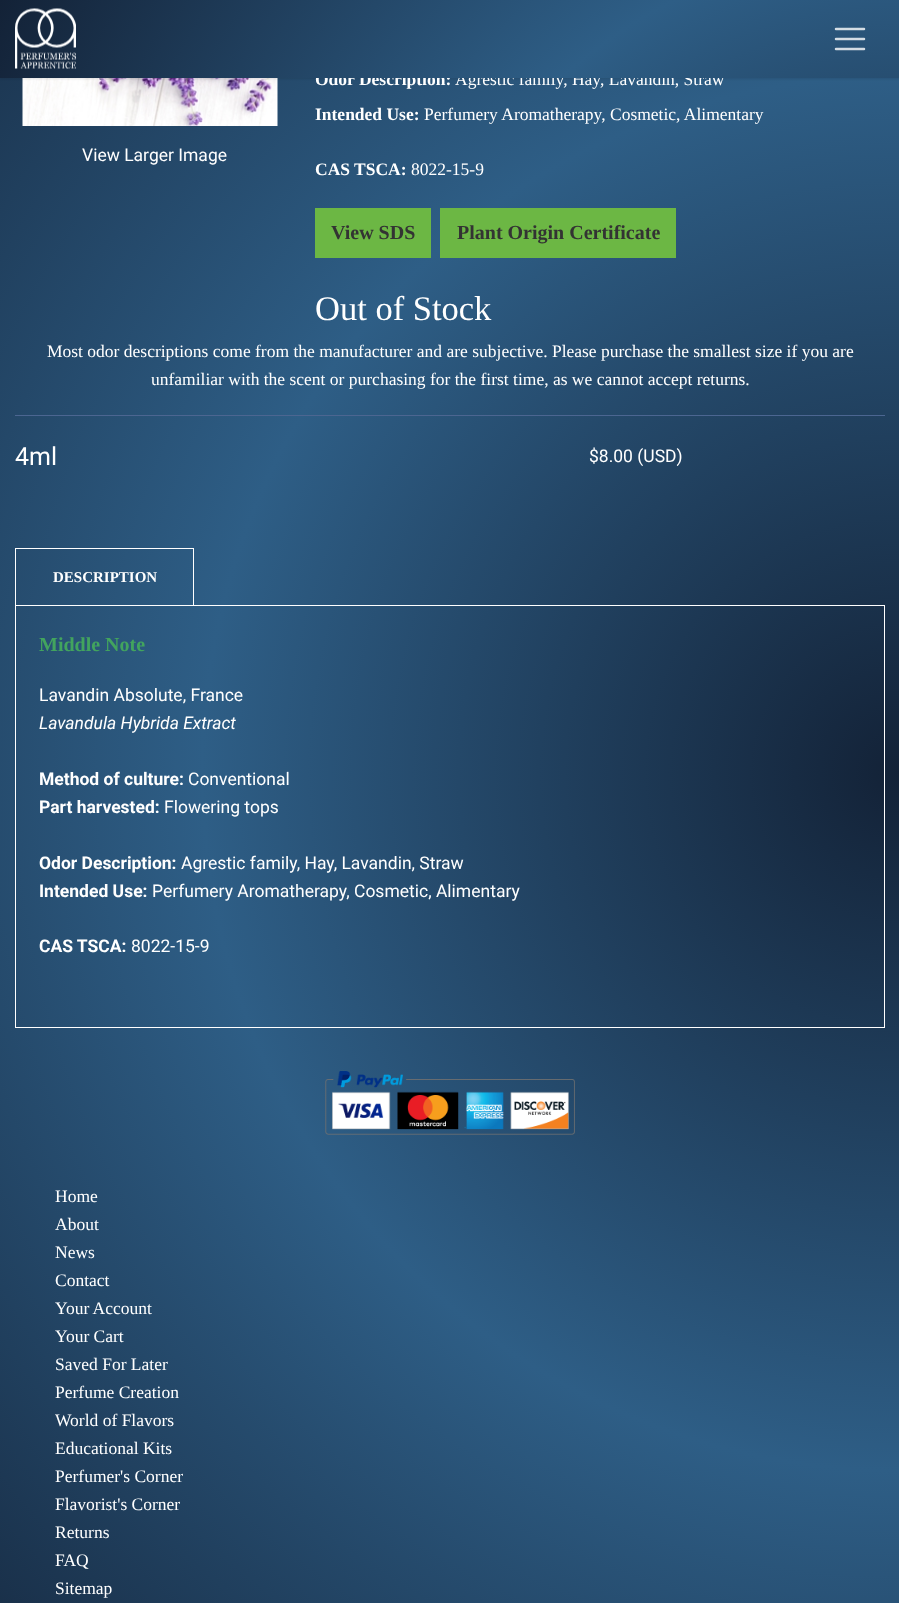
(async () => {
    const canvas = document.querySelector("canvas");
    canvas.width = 899;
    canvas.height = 1603;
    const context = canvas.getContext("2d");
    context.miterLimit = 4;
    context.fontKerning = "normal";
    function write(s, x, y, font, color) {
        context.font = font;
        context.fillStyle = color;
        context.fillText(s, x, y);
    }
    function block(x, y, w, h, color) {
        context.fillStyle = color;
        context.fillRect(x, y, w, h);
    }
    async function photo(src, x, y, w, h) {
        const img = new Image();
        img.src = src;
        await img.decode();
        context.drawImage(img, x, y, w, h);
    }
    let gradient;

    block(0, 0, 899, 1603, "rgb(255, 255, 255)");
    gradient = context.createRadialGradient(900, 773, 0, 900, 773, 1395);
    gradient.addColorStop(0, "rgb(19, 34, 55)");
    gradient.addColorStop(0.5, "rgb(46, 94, 134)");
    gradient.addColorStop(1, "rgb(19, 34, 55)");
    context.fillStyle = gradient;
    context.fillRect(0, 78, 899, 1525);
    await photo("media/2.png", 22, 78, 256, 48);
    context.fillStyle = "rgba(0, 0, 0, 0.1)";
    context.filter = "blur(1px)";
    context.beginPath();
    context.rect(0, 1, 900, 78);
    context.fill();
    context.filter = "none";
    write("Odor Description:", 315, 85, "bold 17.5px Liberation Serif", "rgb(255, 255, 255)");
    write("Agrestic family, Hay, Lavandin, Straw", 455, 85, "17.5px Liberation Serif", "rgb(255, 255, 255)");
    gradient = context.createRadialGradient(900, 450, 0, 900, 450, 1006);
    gradient.addColorStop(0, "rgb(19, 34, 55)");
    gradient.addColorStop(0.5, "rgb(46, 94, 134)");
    gradient.addColorStop(1, "rgb(19, 34, 55)");
    context.fillStyle = gradient;
    context.fillRect(0, 0, 899, 78);
    await photo("media/1.png", 15, 8, 61, 61);
    context.beginPath();
    context.moveTo(836, 29);
    context.lineTo(864, 29);
    context.moveTo(836, 39);
    context.lineTo(864, 39);
    context.moveTo(836, 49);
    context.lineTo(864, 49);
    context.strokeStyle = "rgba(255, 255, 255, 0.8)";
    context.lineWidth = 2.5;
    context.lineCap = "round";
    context.stroke();
    write("View Larger Image", 82, 161, "17.5px Roboto", "rgb(255, 255, 255)");
    write("Intended Use:", 315, 120, "bold 17.5px Liberation Serif", "rgb(255, 255, 255)");
    write("Perfumery Aromatherapy, Cosmetic, Alimentary", 424, 120, "17.5px Liberation Serif", "rgb(255, 255, 255)");
    write("CAS TSCA:", 315, 175, "bold 17.5px Liberation Serif", "rgb(255, 255, 255)");
    write("8022-15-9", 411, 175, "17.5px Liberation Serif", "rgb(255, 255, 255)");
    block(315, 208, 116, 50, "rgb(108, 183, 68)");
    write("View SDS", 331, 239, "bold 20px Liberation Serif", "rgb(51, 51, 51)");
    block(440, 208, 236, 50, "rgb(108, 183, 68)");
    write("Plant Origin Certificate", 457, 239, "bold 20px Liberation Serif", "rgb(51, 51, 51)");
    write("Out of Stock", 315, 320, "34.5px Liberation Serif", "rgb(255, 255, 255)");
    write("Most odor descriptions come from the manufacturer and are subjective. Please purchase the smallest size if you are", 47, 357, "17.5px Liberation Serif", "rgb(255, 255, 255)");
    write("unfamiliar with the scent or purchasing for the first time, as we cannot accept returns.", 151, 385, "17.5px Liberation Serif", "rgb(255, 255, 255)");
    block(15, 415, 870, 1, "rgb(76, 102, 145)");
    write("4ml", 15, 465, "25px Roboto", "rgb(255, 255, 255)");
    write("$8.00 (USD)", 589, 462, "17.5px Roboto", "rgb(255, 255, 255)");
    context.strokeStyle = "rgb(255, 255, 255)";
    context.lineWidth = 1;
    context.strokeRect(15.5, 548.5, 178, 57);
    write("DESCRIPTION", 53, 582, "bold 15px Liberation Serif", "rgb(255, 255, 255)");
    context.strokeRect(15.5, 605.5, 869, 422);
    write("Middle Note", 39, 651, "bold 20px Liberation Serif", "rgb(66, 164, 94)");
    write("Lavandin Absolute, France", 39, 701, "17.5px Roboto", "rgb(255, 255, 255)");
    write("Lavandula Hybrida Extract", 39, 729, "italic 17.5px Roboto", "rgb(255, 255, 255)");
    write("Method of culture:", 39, 785, "bold 17.5px Roboto", "rgb(255, 255, 255)");
    write("Conventional", 188, 785, "17.5px Roboto", "rgb(255, 255, 255)");
    write("Part harvested:", 39, 813, "bold 17.5px Roboto", "rgb(255, 255, 255)");
    write("Flowering tops", 164, 813, "17.5px Roboto", "rgb(255, 255, 255)");
    write("Odor Description:", 39, 869, "bold 17.5px Roboto", "rgb(255, 255, 255)");
    write("Agrestic family, Hay, Lavandin, Straw", 181, 869, "17.5px Roboto", "rgb(255, 255, 255)");
    write("Intended Use:", 39, 897, "bold 17.5px Roboto", "rgb(255, 255, 255)");
    write("Perfumery Aromatherapy, Cosmetic, Alimentary", 152, 897, "17.5px Roboto", "rgb(255, 255, 255)");
    write("CAS TSCA:", 39, 952, "bold 17.5px Roboto", "rgb(255, 255, 255)");
    write("8022-15-9", 131, 952, "17.5px Roboto", "rgb(255, 255, 255)");
    await photo("media/3.png", 325, 1071, 250, 64);
    write("Home", 55, 1202, "17.5px Liberation Serif", "rgb(255, 255, 255)");
    write("About", 55, 1230, "17.5px Liberation Serif", "rgb(255, 255, 255)");
    write("News", 55, 1258, "17.5px Liberation Serif", "rgb(255, 255, 255)");
    write("Contact", 55, 1286, "17.5px Liberation Serif", "rgb(255, 255, 255)");
    write("Your Account", 55, 1314, "17.5px Liberation Serif", "rgb(255, 255, 255)");
    write("Your Cart", 55, 1342, "17.5px Liberation Serif", "rgb(255, 255, 255)");
    write("Saved For Later", 55, 1370, "17.5px Liberation Serif", "rgb(255, 255, 255)");
    write("Perfume Creation", 55, 1398, "17.5px Liberation Serif", "rgb(255, 255, 255)");
    write("World of Flavors", 55, 1426, "17.5px Liberation Serif", "rgb(255, 255, 255)");
    write("Educational Kits", 55, 1454, "17.5px Liberation Serif", "rgb(255, 255, 255)");
    write("Perfumer's Corner", 55, 1482, "17.5px Liberation Serif", "rgb(255, 255, 255)");
    write("Flavorist's Corner", 55, 1510, "17.5px Liberation Serif", "rgb(255, 255, 255)");
    write("Returns", 55, 1538, "17.5px Liberation Serif", "rgb(255, 255, 255)");
    write("FAQ", 55, 1566, "17.5px Liberation Serif", "rgb(255, 255, 255)");
    write("Sitemap", 55, 1594, "17.5px Liberation Serif", "rgb(255, 255, 255)");
})();
